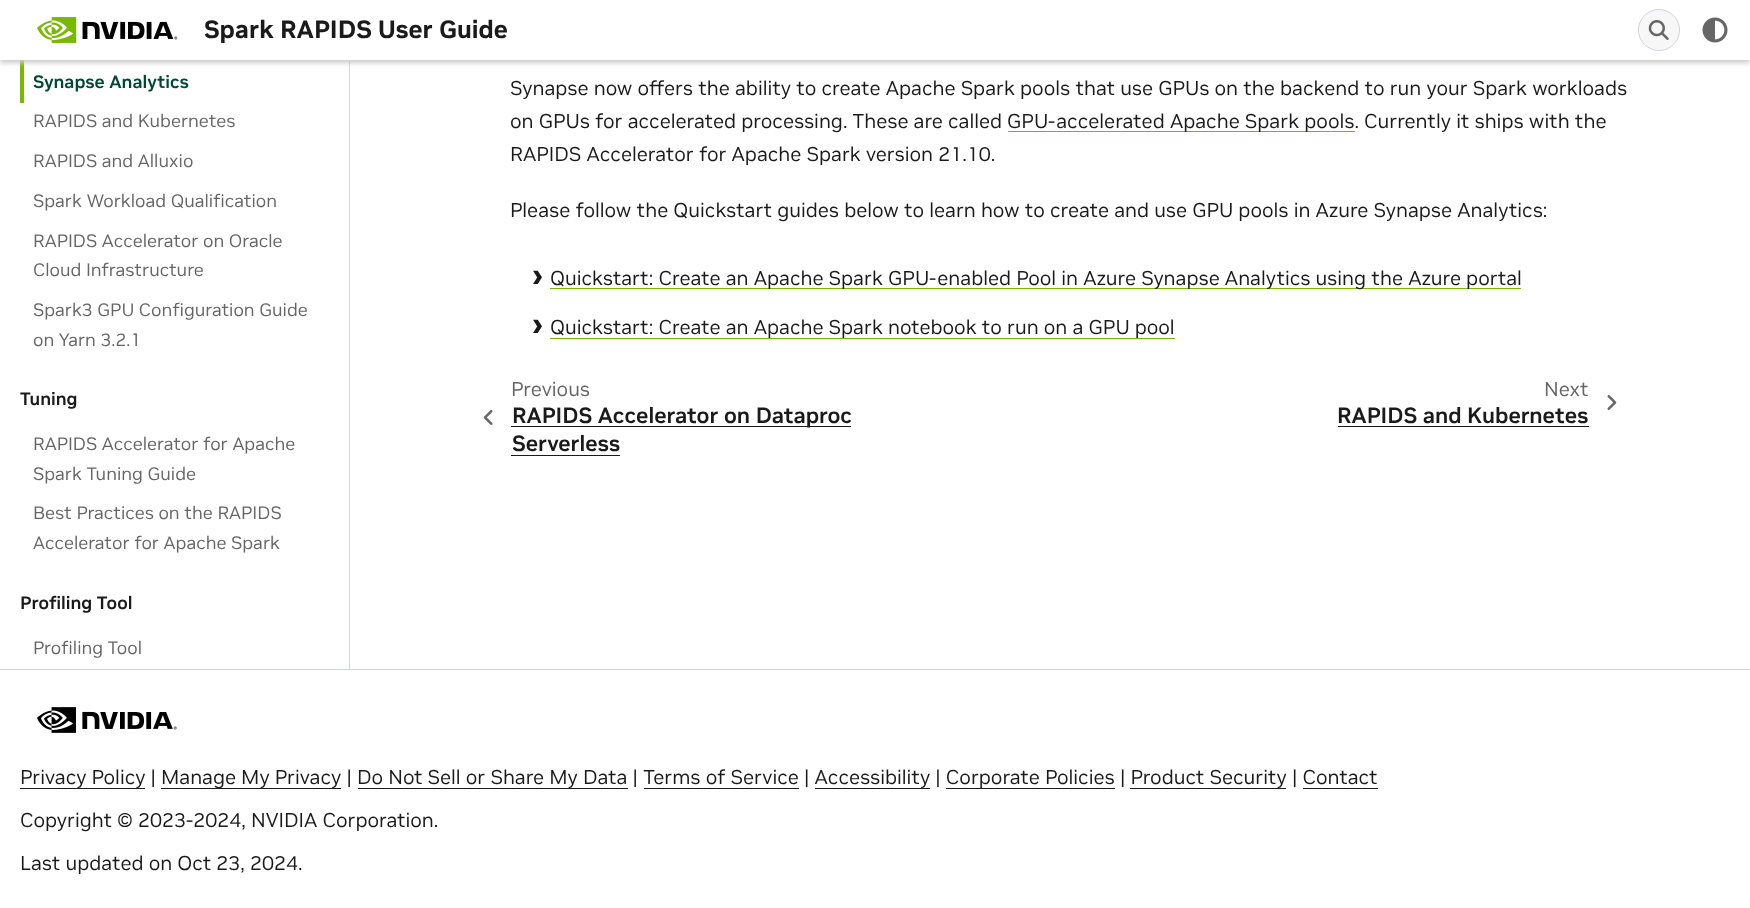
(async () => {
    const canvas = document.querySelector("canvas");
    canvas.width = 1750;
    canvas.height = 908;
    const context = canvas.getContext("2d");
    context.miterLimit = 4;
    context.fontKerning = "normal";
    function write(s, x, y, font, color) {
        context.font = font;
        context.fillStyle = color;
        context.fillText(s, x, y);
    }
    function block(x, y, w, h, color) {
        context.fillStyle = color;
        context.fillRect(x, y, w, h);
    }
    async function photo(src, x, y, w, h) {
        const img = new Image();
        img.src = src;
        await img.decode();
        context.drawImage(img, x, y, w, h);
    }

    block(0, 0, 1750, 908, "rgb(255, 255, 255)");
    block(349, 60, 1, 609, "rgb(209, 213, 218)");
    block(20, 60, 4, 43, "rgb(118, 185, 0)");
    context.fillStyle = "rgb(204, 204, 204)";
    context.filter = "blur(2.5px)";
    context.beginPath();
    context.rect(0, 3, 1750, 60);
    context.fill();
    context.filter = "none";
    block(0, 0, 1750, 60, "rgb(255, 255, 255)");
    await photo("media/1.png", 37, 17, 141, 26);
    write("Spark RAPIDS User Guide", 204, 38, "bold 25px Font", "rgb(26, 26, 26)");
    context.fillStyle = "rgb(247, 247, 247)";
    context.beginPath();
    context.arc(1659, 30, 20.5, 0, Math.PI * 2);
    context.fill();
    context.strokeStyle = "rgb(209, 213, 218)";
    context.stroke();
    await photo("media/2.png", 1648, 20, 21, 20);
    await photo("media/3.png", 1702, 17, 26, 26);
    write("Synapse Analytics", 33, 88, "600 18px Font", "rgb(0, 72, 49)");
    write("RAPIDS and Kubernetes", 33, 127, "18px Font", "rgb(102, 102, 102)");
    write("RAPIDS and Alluxio", 33, 167, "18px Font", "rgb(102, 102, 102)");
    write("Spark Workload Qualification", 33, 207, "18px Font", "rgb(102, 102, 102)");
    write("RAPIDS Accelerator on Oracle", 33, 247, "18px Font", "rgb(102, 102, 102)");
    write("Cloud Infrastructure", 33, 276, "18px Font", "rgb(102, 102, 102)");
    write("Spark3 GPU Configuration Guide", 33, 316, "18px Font", "rgb(102, 102, 102)");
    write("on Yarn 3.2.1", 33, 346, "18px Font", "rgb(102, 102, 102)");
    write("Tuning", 20, 405, "600 18px Font", "rgb(26, 26, 26)");
    write("RAPIDS Accelerator for Apache", 33, 450, "18px Font", "rgb(102, 102, 102)");
    write("Spark Tuning Guide", 33, 480, "18px Font", "rgb(102, 102, 102)");
    write("Best Practices on the RAPIDS", 33, 519, "18px Font", "rgb(102, 102, 102)");
    write("Accelerator for Apache Spark", 33, 549, "18px Font", "rgb(102, 102, 102)");
    write("Profiling Tool", 20, 609, "600 18px Font", "rgb(26, 26, 26)");
    write("Profiling Tool", 33, 654, "18px Font", "rgb(102, 102, 102)");
    write("Synapse now offers the ability to create Apache Spark pools that use GPUs on the backend to run your Spark workloads", 510, 95, "20px Font", "rgb(26, 26, 26)");
    write("on GPUs for accelerated processing. These are called", 510, 128, "20px Font", "rgb(26, 26, 26)");
    block(1008, 131, 347, 1, "rgb(118, 185, 0)");
    write("GPU-accelerated Apache Spark pools. Currently it ships with the", 1007, 128, "20px Font", "rgb(26, 26, 26)");
    write("RAPIDS Accelerator for Apache Spark version 21.10.", 510, 161, "20px Font", "rgb(26, 26, 26)");
    write("Please follow the Quickstart guides below to learn how to create and use GPU pools in Azure Synapse Analytics:", 510, 217, "20px Font", "rgb(26, 26, 26)");
    write("›", 532, 285, "bold 30px Font", "rgb(26, 26, 26)");
    block(550, 288, 971, 1, "rgb(118, 185, 0)");
    write("Quickstart: Create an Apache Spark GPU-enabled Pool in Azure Synapse Analytics using the Azure portal", 550, 285, "20px Font", "rgb(26, 26, 26)");
    write("›", 532, 334, "bold 30px Font", "rgb(26, 26, 26)");
    write("Quickstart: Create an Apache Spark notebook to run on a GPU pool", 550, 334, "20px Font", "rgb(26, 26, 26)");
    block(550, 338, 625, 1, "rgb(118, 185, 0)");
    await photo("media/4.png", 483, 410, 10, 15);
    write("Previous", 511, 396, "20px Font", "rgb(102, 102, 102)");
    block(511, 426, 340, 1, "rgb(26, 26, 26)");
    write("RAPIDS Accelerator on Dataproc", 512, 423, "600 22px Font", "rgb(26, 26, 26)");
    write("Serverless", 512, 451, "600 22px Font", "rgb(26, 26, 26)");
    block(511, 455, 109, 1, "rgb(26, 26, 26)");
    write("Next", 1544, 396, "20px Font", "rgb(102, 102, 102)");
    write("RAPIDS and Kubernetes", 1337, 423, "600 22px Font", "rgb(26, 26, 26)");
    block(1338, 426, 251, 1, "rgb(26, 26, 26)");
    await photo("media/5.png", 1607, 395, 10, 15);
    block(0, 669, 1750, 1, "rgb(209, 213, 218)");
    await photo("media/6.png", 37, 707, 140, 26);
    write("Privacy Policy |", 20, 784, "20px Font", "rgb(26, 26, 26)");
    block(20, 788, 125, 1, "rgb(26, 26, 26)");
    block(161, 788, 180, 1, "rgb(26, 26, 26)");
    write("Manage My Privacy | Do Not Sell or Share My Data | Terms of Service | Accessibility | Corporate Policies | Product Security | Contact", 161, 784, "20px Font", "rgb(26, 26, 26)");
    block(358, 788, 270, 1, "rgb(26, 26, 26)");
    block(644, 788, 155, 1, "rgb(26, 26, 26)");
    block(815, 788, 115, 1, "rgb(26, 26, 26)");
    block(946, 788, 169, 1, "rgb(26, 26, 26)");
    block(1130, 788, 156, 1, "rgb(26, 26, 26)");
    block(1303, 788, 75, 1, "rgb(26, 26, 26)");
    write("Copyright © 2023-2024, NVIDIA Corporation.", 20, 827, "20px Font", "rgb(26, 26, 26)");
    write("Last updated on Oct 23, 2024.", 20, 870, "20px Font", "rgb(26, 26, 26)");
})();
